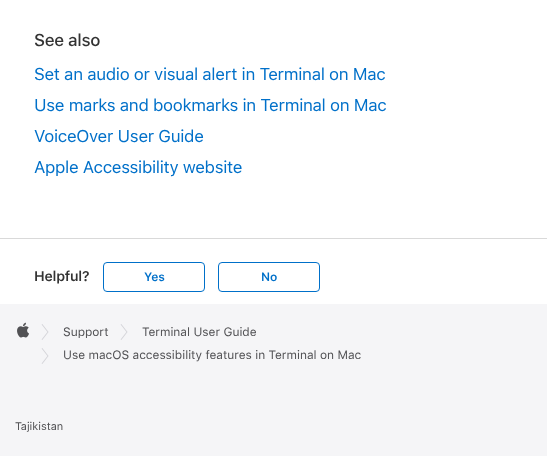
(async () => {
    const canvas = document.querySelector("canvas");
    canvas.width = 547;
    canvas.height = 456;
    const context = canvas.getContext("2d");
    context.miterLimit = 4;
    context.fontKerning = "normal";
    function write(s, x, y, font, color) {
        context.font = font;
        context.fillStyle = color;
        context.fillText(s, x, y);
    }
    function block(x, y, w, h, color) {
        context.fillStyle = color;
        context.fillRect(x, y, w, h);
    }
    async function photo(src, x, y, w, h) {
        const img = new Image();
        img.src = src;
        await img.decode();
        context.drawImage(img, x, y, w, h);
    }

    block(0, 0, 547, 456, "rgb(255, 255, 255)");
    context.letterSpacing = "-0.35px";
    write("See also", 34, 46, "500 17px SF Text", "rgb(51, 51, 51)");
    write("Set an audio or visual alert in Terminal on Mac", 34, 80, "17px SF Text", "rgb(0, 112, 201)");
    write("Use marks and bookmarks in Terminal on Mac", 34, 111, "17px SF Text", "rgb(0, 112, 201)");
    write("VoiceOver User Guide", 34, 142, "17px SF Text", "rgb(0, 112, 201)");
    write("Apple Accessibility website", 34, 173, "17px SF Text", "rgb(0, 112, 201)");
    block(0, 238, 547, 1, "rgb(217, 217, 217)");
    context.letterSpacing = "-0.25px";
    write("Helpful?", 34, 281, "600 14px SF Text", "rgb(51, 51, 51)");
    context.beginPath();
    context.roundRect(103.5, 262.5, 101, 29, 3.5);
    context.strokeStyle = "rgb(0, 112, 201)";
    context.stroke();
    context.letterSpacing = "0px";
    write("Yes", 144, 281, "600 12px SF Text", "rgb(0, 112, 201)");
    context.beginPath();
    context.roundRect(218.5, 262.5, 101, 29, 3.5);
    context.stroke();
    write("No", 261, 281, "600 12px SF Text", "rgb(0, 112, 201)");
    block(0, 304, 547, 152, "rgb(245, 245, 247)");
    await photo("media/1.png", 17, 322, 12, 16);
    await photo("media/2.png", 41, 324, 8, 16);
    write("Support", 63, 336, "12px SF Text", "rgb(81, 81, 84)");
    await photo("media/2.png", 120, 324, 8, 16);
    write("Terminal User Guide", 142, 336, "12px SF Text", "rgb(81, 81, 84)");
    await photo("media/2.png", 41, 348, 8, 16);
    write("Use macOS accessibility features in Terminal on Mac", 63, 359, "12px SF Text", "rgb(81, 81, 84)");
    write("Tajikistan", 15, 430, "11px SF Text", "rgb(81, 81, 84)");
})();
